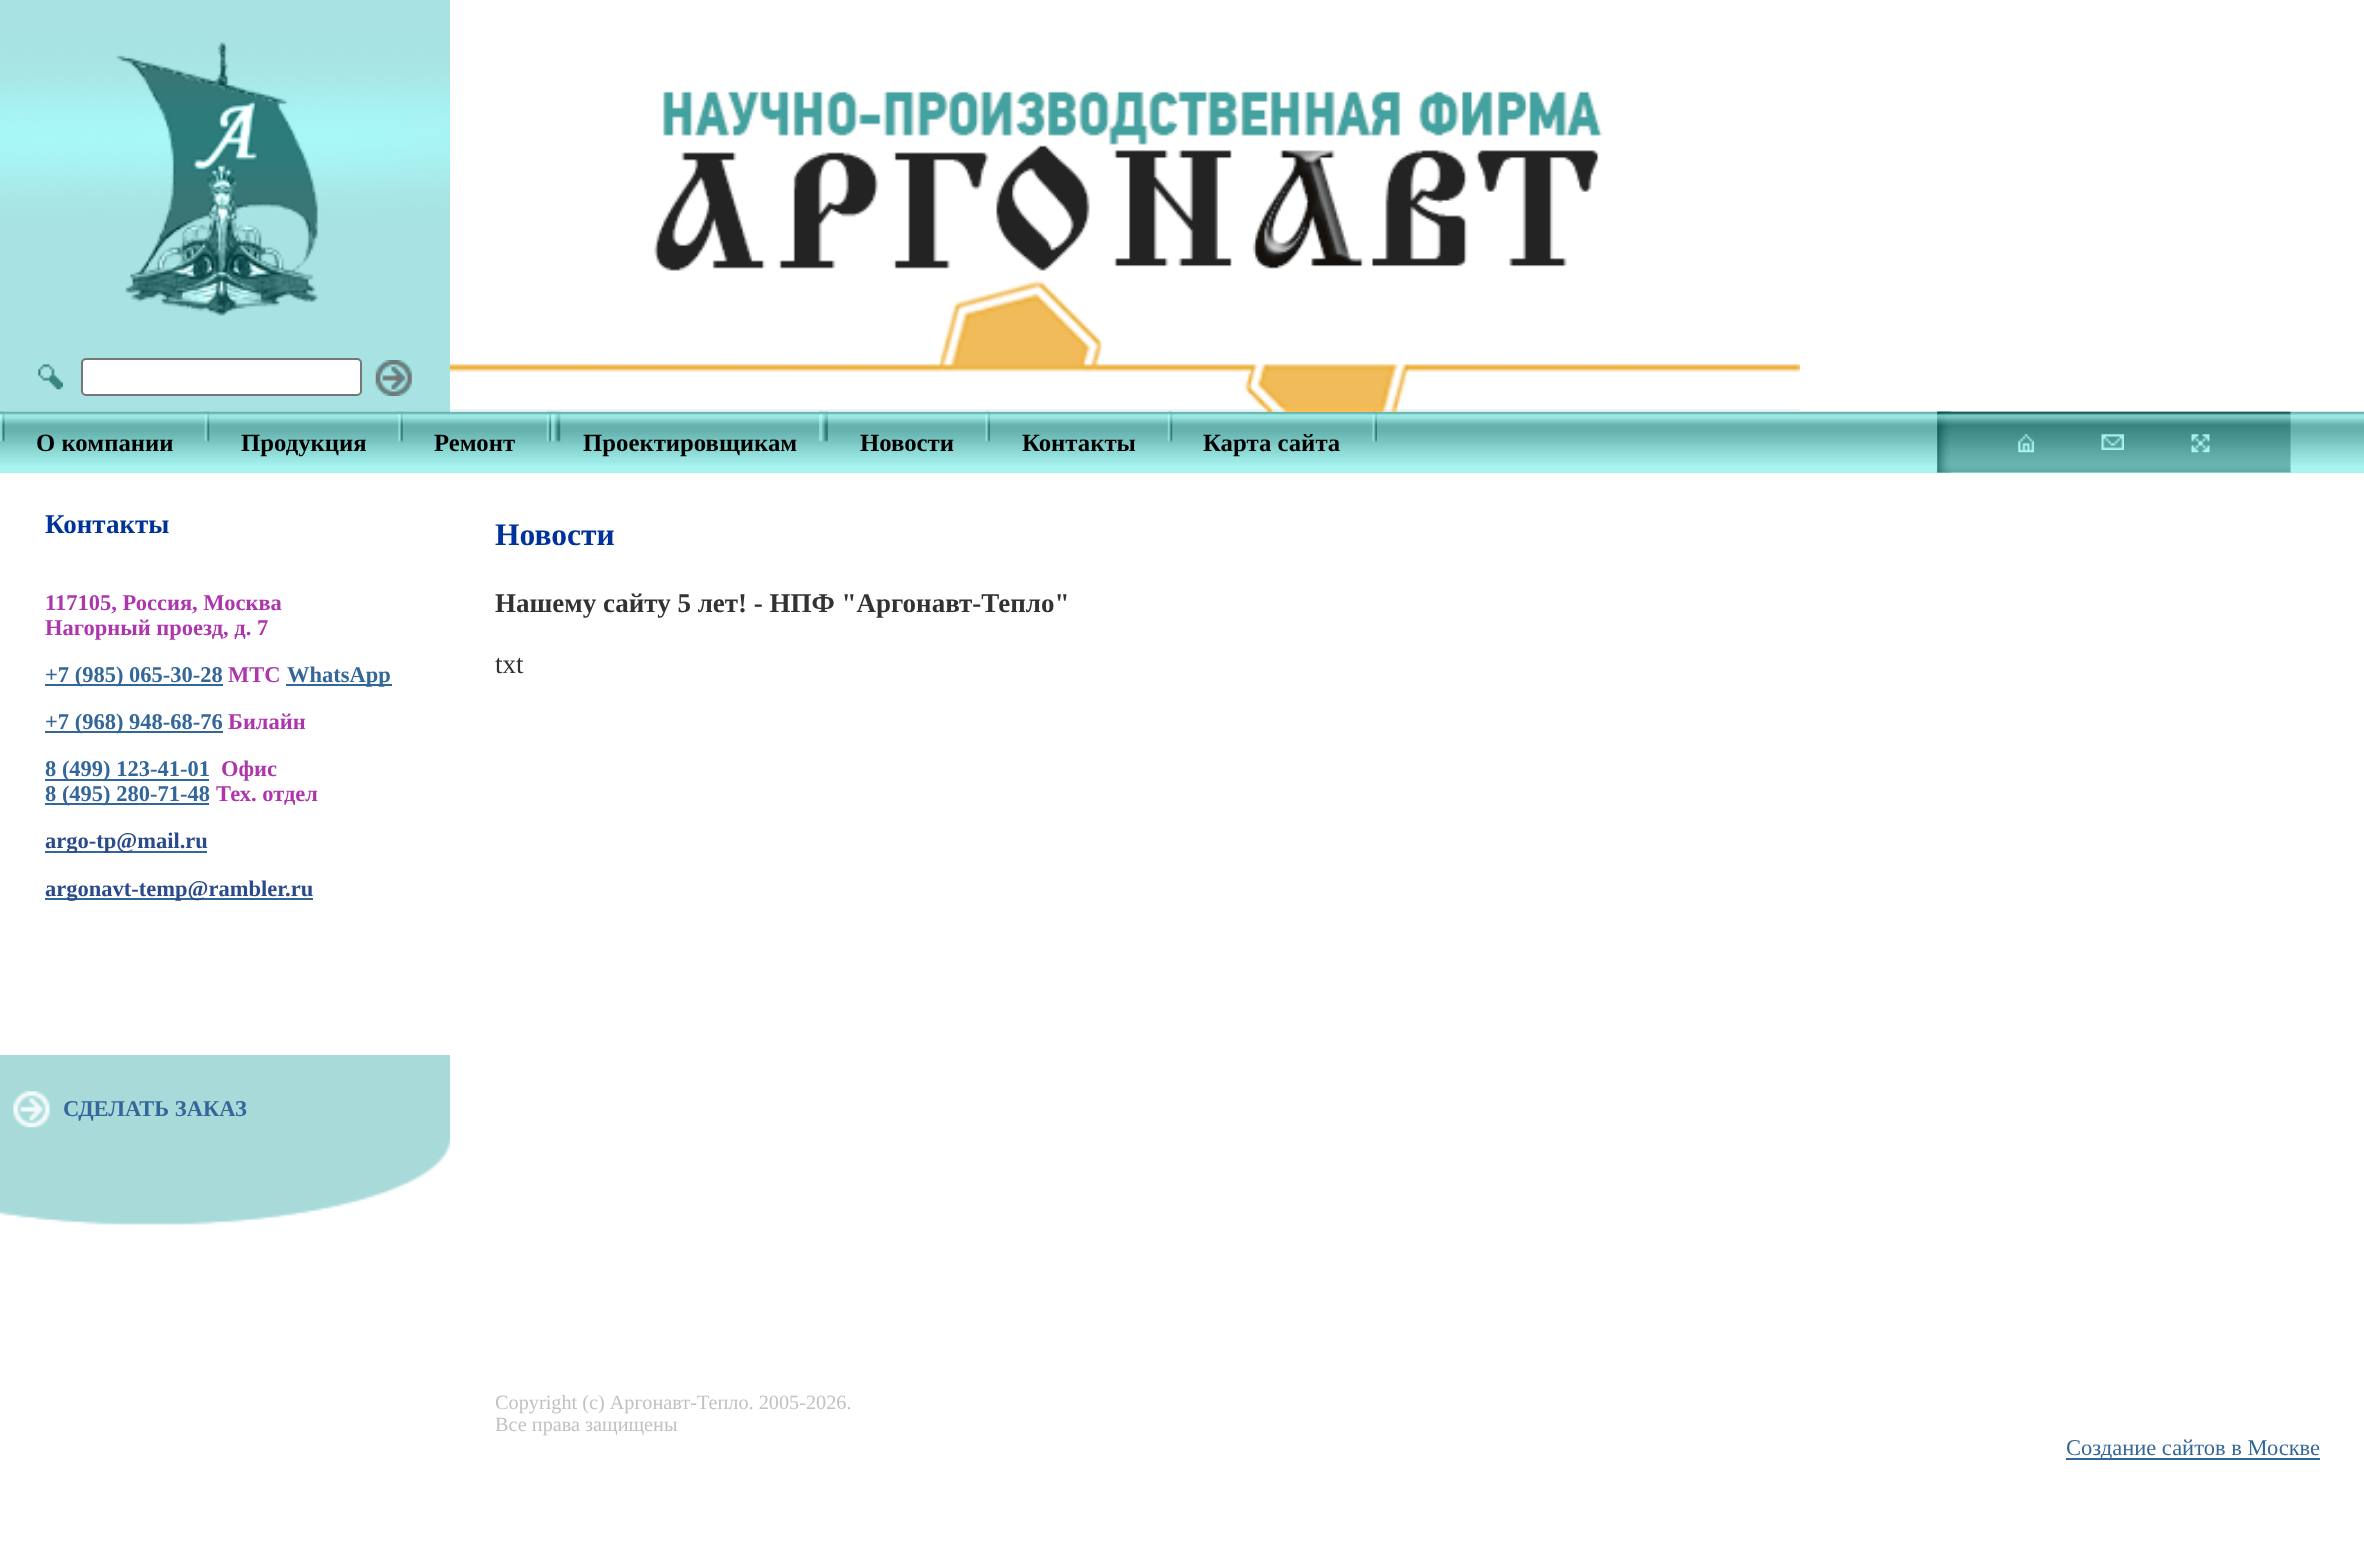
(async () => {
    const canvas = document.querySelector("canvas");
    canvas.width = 2364;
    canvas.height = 1546;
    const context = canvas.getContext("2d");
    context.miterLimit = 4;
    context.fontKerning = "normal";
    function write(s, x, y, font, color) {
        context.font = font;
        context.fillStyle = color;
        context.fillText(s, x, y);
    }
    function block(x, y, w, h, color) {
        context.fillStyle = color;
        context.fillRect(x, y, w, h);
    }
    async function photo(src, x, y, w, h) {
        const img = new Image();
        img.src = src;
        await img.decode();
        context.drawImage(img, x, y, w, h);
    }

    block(0, 0, 2364, 1546, "rgb(255, 255, 255)");
    block(0, 0, 450, 412, "rgb(168, 226, 226)");
    await photo("media/1.png", 0, 42, 450, 274);
    await photo("media/2.png", 38, 364, 25, 26);
    context.fillStyle = "rgb(255, 255, 255)";
    context.beginPath();
    context.roundRect(82, 359, 279, 36, 4);
    context.fill();
    context.strokeStyle = "rgb(118, 118, 118)";
    context.lineWidth = 2;
    context.stroke();
    await photo("media/3.png", 375, 360, 37, 36);
    await photo("media/5.png", 0, 411, 2364, 54);
    await photo("media/4.png", 450, 91, 1350, 321);
    block(0, 465, 2364, 8, "rgb(167, 244, 240)");
    await photo("media/6.png", 0, 411, 5, 31);
    await photo("media/7.png", 204, 411, 6, 31);
    await photo("media/8.png", 398, 411, 5, 31);
    await photo("media/9.png", 546, 411, 6, 31);
    await photo("media/10.png", 985, 411, 5, 31);
    await photo("media/9.png", 1167, 411, 6, 31);
    await photo("media/11.png", 1372, 411, 5, 31);
    write("О компании", 36, 451, "bold 24.75px Liberation Serif", "rgb(0, 0, 0)");
    write("Продукция", 241, 451, "bold 24.75px Liberation Serif", "rgb(0, 0, 0)");
    write("Ремонт", 434, 451, "bold 24.75px Liberation Serif", "rgb(0, 0, 0)");
    await photo("media/12.png", 551, 411, 10, 31);
    await photo("media/13.png", 819, 411, 9, 31);
    write("Проектировщикам", 583, 451, "bold 24.75px Liberation Serif", "rgb(0, 0, 0)");
    write("Новости", 860, 451, "bold 24.75px Liberation Serif", "rgb(0, 0, 0)");
    write("Контакты", 1022, 451, "bold 24.75px Liberation Serif", "rgb(0, 0, 0)");
    write("Карта сайта", 1203, 451, "bold 24.75px Liberation Serif", "rgb(0, 0, 0)");
    await photo("media/14.png", 1937, 411, 354, 62);
    await photo("media/15.png", 1937, 411, 14, 62);
    await photo("media/16.png", 2018, 434, 16, 19);
    await photo("media/17.png", 2101, 434, 23, 16);
    await photo("media/18.png", 2191, 434, 19, 19);
    write("Контакты", 45, 533, "bold 27px Liberation Serif", "rgb(0, 51, 153)");
    write("117105, Россия, Москва", 45, 610, "bold 22.5px Liberation Serif", "rgb(173, 54, 173)");
    write("Нагорный проезд, д. 7", 45, 635, "bold 22.5px Liberation Serif", "rgb(173, 54, 173)");
    block(45, 684, 178, 2, "rgb(51, 102, 153)");
    write("+7 (985) 065-30-28", 45, 682, "bold 22.5px Liberation Serif", "rgb(51, 102, 153)");
    write("МТС", 228, 682, "bold 22.5px Liberation Serif", "rgb(173, 54, 173)");
    block(286, 684, 106, 2, "rgb(51, 102, 153)");
    write("WhatsApp", 287, 682, "bold 22.5px Liberation Serif", "rgb(51, 102, 153)");
    block(45, 731, 178, 2, "rgb(51, 102, 153)");
    write("+7 (968) 948-68-76", 45, 729, "bold 22.5px Liberation Serif", "rgb(51, 102, 153)");
    write("Билайн", 228, 729, "bold 22.5px Liberation Serif", "rgb(173, 54, 173)");
    block(45, 779, 164, 2, "rgb(51, 102, 153)");
    write("8 (499) 123-41-01", 45, 776, "bold 22.5px Liberation Serif", "rgb(51, 102, 153)");
    write("Офис", 221, 776, "bold 22.5px Liberation Serif", "rgb(173, 54, 173)");
    block(45, 803, 164, 2, "rgb(51, 102, 153)");
    write("8 (495) 280-71-48", 45, 801, "bold 22.5px Liberation Serif", "rgb(51, 102, 153)");
    write("Тех. отдел", 216, 801, "bold 22.5px Liberation Serif", "rgb(173, 54, 173)");
    block(45, 851, 162, 2, "rgb(51, 102, 153)");
    write("argo-tp@mail.ru", 45, 848, "bold 22.5px Liberation Serif", "rgb(43, 74, 138)");
    block(45, 898, 268, 2, "rgb(51, 102, 153)");
    write("argonavt-temp@rambler.ru", 45, 896, "bold 22.5px Liberation Serif", "rgb(43, 74, 138)");
    block(0, 1055, 450, 84, "rgb(168, 218, 218)");
    await photo("media/19.png", 13, 1091, 37, 37);
    write("СДЕЛАТЬ ЗАКАЗ", 63, 1116, "bold 22.5px Liberation Serif", "rgb(51, 102, 153)");
    await photo("media/20.png", 0, 1139, 450, 86);
    write("Новости", 495, 545, "bold 31.5px Liberation Serif", "rgb(0, 51, 153)");
    write("Нашему сайту 5 лет! - НПФ \"Аргонавт-Тепло\"", 495, 612, "bold 27px Liberation Serif", "rgb(50, 50, 50)");
    write("txt", 495, 673, "27px Liberation Serif", "rgb(50, 50, 50)");
    write("Copyright (c) Аргонавт-Тепло. 2005-2026.", 495, 1409, "20.25px Liberation Serif", "rgb(193, 193, 193)");
    write("Все права защищены", 495, 1431, "20.25px Liberation Serif", "rgb(193, 193, 193)");
    block(2066, 1458, 254, 2, "rgb(51, 102, 153)");
    write("Создание сайтов в Москве", 2066, 1455, "22.5px Liberation Serif", "rgb(51, 102, 153)");
})();
